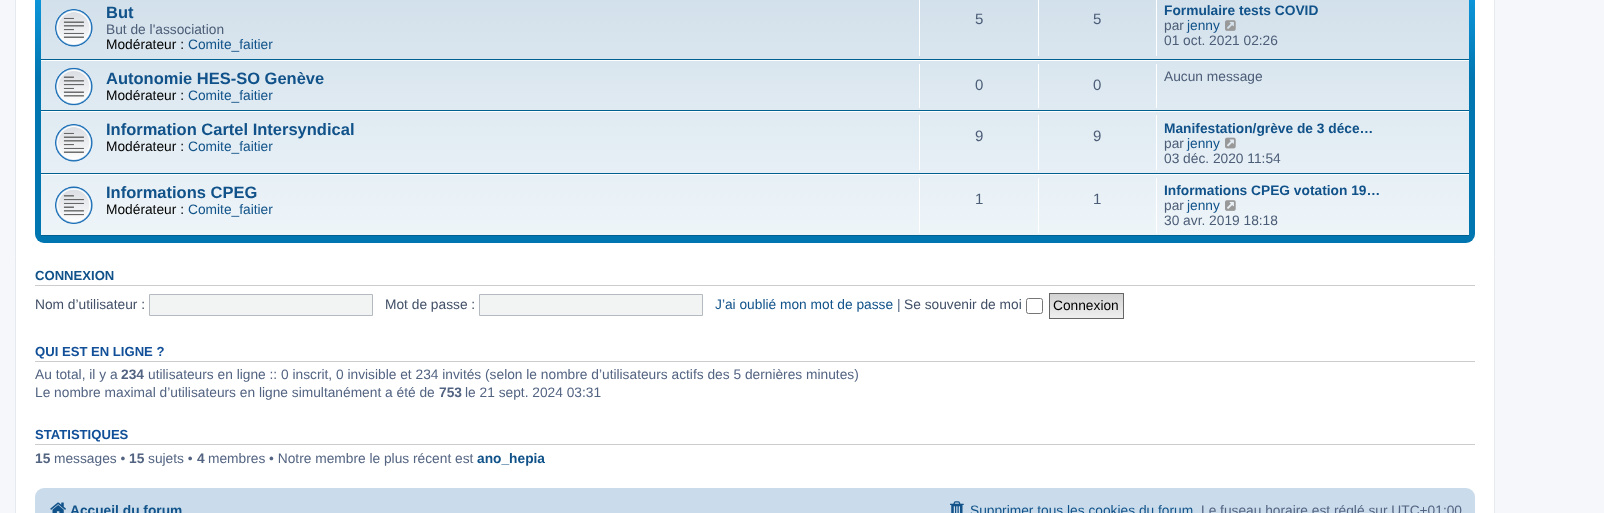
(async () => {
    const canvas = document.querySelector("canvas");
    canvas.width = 1604;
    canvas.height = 513;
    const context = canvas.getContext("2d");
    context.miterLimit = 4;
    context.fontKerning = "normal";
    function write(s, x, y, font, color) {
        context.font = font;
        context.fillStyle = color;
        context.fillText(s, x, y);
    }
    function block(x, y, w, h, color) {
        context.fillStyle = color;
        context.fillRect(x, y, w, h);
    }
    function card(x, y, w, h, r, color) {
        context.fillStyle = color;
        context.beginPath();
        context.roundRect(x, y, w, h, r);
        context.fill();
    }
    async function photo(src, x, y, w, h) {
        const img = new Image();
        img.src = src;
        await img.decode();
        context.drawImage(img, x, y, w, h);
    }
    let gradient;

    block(0, 0, 1604, 513, "rgb(245, 247, 250)");
    context.fillStyle = "rgb(255, 255, 255)";
    context.beginPath();
    context.rect(15.5, -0.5, 1479, 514);
    context.fill();
    context.strokeStyle = "rgb(230, 233, 237)";
    context.stroke();
    gradient = context.createLinearGradient(755, -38, 755, 243);
    gradient.addColorStop(0, "rgb(106, 206, 255)");
    gradient.addColorStop(0.01, "rgb(18, 163, 235)");
    gradient.addColorStop(0.41, "rgb(0, 118, 177)");
    gradient.addColorStop(1, "rgb(0, 118, 177)");
    context.fillStyle = gradient;
    context.beginPath();
    context.roundRect(35, -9, 1440, 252, 9);
    context.fill();
    gradient = context.createLinearGradient(755, -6.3, 755, 236);
    gradient.addColorStop(0, "rgb(210, 224, 235)");
    gradient.addColorStop(1, "rgb(238, 245, 249)");
    context.fillStyle = gradient;
    context.fillRect(41, 0, 1428, 235);
    block(41, 59, 1428, 1, "rgb(0, 96, 143)");
    await photo("media/1.png", 55, 9, 38, 38);
    write("But", 106, 18, "bold 16.5px Liberation Sans", "rgb(16, 82, 137)");
    write("But de l'association", 106, 34, "13.75px Liberation Sans", "rgb(76, 93, 119)");
    write("Modérateur :", 106, 49, "13.75px Liberation Sans", "rgb(0, 0, 0)");
    write("Comite_faitier", 188, 49, "13.75px Liberation Sans", "rgb(16, 82, 137)");
    block(919, 0, 1, 56, "rgb(255, 255, 255)");
    write("5", 975, 24, "15px Liberation Sans", "rgb(76, 93, 119)");
    block(1038, 0, 1, 56, "rgb(255, 255, 255)");
    write("5", 1093, 24, "15px Liberation Sans", "rgb(76, 93, 119)");
    block(1156, 0, 1, 56, "rgb(255, 255, 255)");
    write("Formulaire tests COVID", 1164, 15, "bold 13.75px Liberation Sans", "rgb(16, 82, 137)");
    write("par", 1164, 30, "13.75px Liberation Sans", "rgb(76, 93, 119)");
    write("jenny", 1187, 30, "13.75px Liberation Sans", "rgb(16, 82, 137)");
    await photo("media/2.png", 1225, 20, 11, 11);
    write("01 oct. 2021 02:26", 1164, 45, "13.75px Liberation Sans", "rgb(76, 93, 119)");
    block(41, 60, 1428, 1, "rgb(255, 255, 255)");
    block(41, 110, 1428, 1, "rgb(0, 96, 143)");
    await photo("media/3.png", 55, 67, 38, 39);
    write("Autonomie HES-SO Genève", 106, 84, "bold 16.5px Liberation Sans", "rgb(16, 82, 137)");
    write("Modérateur :", 106, 100, "13.75px Liberation Sans", "rgb(0, 0, 0)");
    write("Comite_faitier", 188, 100, "13.75px Liberation Sans", "rgb(16, 82, 137)");
    block(919, 64, 1, 44, "rgb(255, 255, 255)");
    write("0", 975, 90, "15px Liberation Sans", "rgb(76, 93, 119)");
    block(1038, 64, 1, 44, "rgb(255, 255, 255)");
    write("0", 1093, 90, "15px Liberation Sans", "rgb(76, 93, 119)");
    block(1156, 64, 1, 44, "rgb(255, 255, 255)");
    write("Aucun message", 1164, 81, "13.75px Liberation Sans", "rgb(76, 93, 119)");
    block(41, 111, 1428, 1, "rgb(255, 255, 255)");
    block(41, 173, 1428, 1, "rgb(0, 96, 143)");
    await photo("media/4.png", 55, 124, 38, 38);
    write("Information Cartel Intersyndical", 106, 135, "bold 16.5px Liberation Sans", "rgb(16, 82, 137)");
    write("Modérateur :", 106, 151, "13.75px Liberation Sans", "rgb(0, 0, 0)");
    write("Comite_faitier", 188, 151, "13.75px Liberation Sans", "rgb(16, 82, 137)");
    block(919, 115, 1, 55, "rgb(255, 255, 255)");
    write("9", 975, 141, "15px Liberation Sans", "rgb(76, 93, 119)");
    block(1038, 115, 1, 55, "rgb(255, 255, 255)");
    write("9", 1093, 141, "15px Liberation Sans", "rgb(76, 93, 119)");
    block(1156, 115, 1, 55, "rgb(255, 255, 255)");
    write("Manifestation/grève de 3 déce…", 1164, 133, "bold 13.75px Liberation Sans", "rgb(16, 82, 137)");
    write("par", 1164, 148, "13.75px Liberation Sans", "rgb(76, 93, 119)");
    write("jenny", 1187, 148, "13.75px Liberation Sans", "rgb(16, 82, 137)");
    await photo("media/5.png", 1225, 137, 11, 12);
    write("03 déc. 2020 11:54", 1164, 163, "13.75px Liberation Sans", "rgb(76, 93, 119)");
    block(41, 174, 1428, 1, "rgb(255, 255, 255)");
    block(41, 235, 1428, 1, "rgb(0, 96, 143)");
    await photo("media/6.png", 55, 186, 38, 38);
    write("Informations CPEG", 106, 198, "bold 16.5px Liberation Sans", "rgb(16, 82, 137)");
    write("Modérateur :", 106, 214, "13.75px Liberation Sans", "rgb(0, 0, 0)");
    write("Comite_faitier", 188, 214, "13.75px Liberation Sans", "rgb(16, 82, 137)");
    block(919, 178, 1, 55, "rgb(255, 255, 255)");
    write("1", 975, 204, "15px Liberation Sans", "rgb(76, 93, 119)");
    block(1038, 178, 1, 55, "rgb(255, 255, 255)");
    write("1", 1093, 204, "15px Liberation Sans", "rgb(76, 93, 119)");
    block(1156, 178, 1, 55, "rgb(255, 255, 255)");
    write("Informations CPEG votation 19…", 1164, 195, "bold 13.75px Liberation Sans", "rgb(16, 82, 137)");
    write("par", 1164, 210, "13.75px Liberation Sans", "rgb(76, 93, 119)");
    write("jenny", 1187, 210, "13.75px Liberation Sans", "rgb(16, 82, 137)");
    await photo("media/7.png", 1225, 200, 11, 11);
    write("30 avr. 2019 18:18", 1164, 225, "13.75px Liberation Sans", "rgb(76, 93, 119)");
    block(35, 285, 1440, 1, "rgb(204, 204, 204)");
    write("CONNEXION", 35, 280, "bold 13.1px Liberation Sans", "rgb(16, 82, 137)");
    write("Nom d’utilisateur :", 35, 309, "13.75px Liberation Sans", "rgb(66, 80, 103)");
    context.fillStyle = "rgb(242, 243, 243)";
    context.beginPath();
    context.rect(149.5, 294.5, 223, 21);
    context.fill();
    context.strokeStyle = "rgb(180, 186, 192)";
    context.stroke();
    write("Mot de passe :", 385, 309, "13.75px Liberation Sans", "rgb(66, 80, 103)");
    context.fillStyle = "rgb(242, 243, 243)";
    context.beginPath();
    context.rect(479.5, 294.5, 223, 21);
    context.fill();
    context.stroke();
    write("J’ai oublié mon mot de passe", 715, 309, "13.75px Liberation Sans", "rgb(16, 82, 137)");
    write("|", 897, 309, "13.75px Liberation Sans", "rgb(83, 100, 130)");
    write("Se souvenir de moi", 904, 309, "13.75px Liberation Sans", "rgb(66, 80, 103)");
    context.beginPath();
    context.roundRect(1026.5, 298.5, 16, 15, 2);
    context.strokeStyle = "rgb(118, 118, 118)";
    context.stroke();
    gradient = context.createLinearGradient(1086, 294, 1086, 318);
    gradient.addColorStop(0, "rgb(210, 210, 210)");
    gradient.addColorStop(1, "rgb(239, 239, 239)");
    context.fillStyle = gradient;
    context.fillRect(1050, 294, 73, 24);
    context.strokeStyle = "rgb(102, 102, 102)";
    context.strokeRect(1049.5, 293.5, 74, 25);
    write("Connexion", 1053, 310, "13.75px Liberation Sans", "rgb(0, 0, 0)");
    block(35, 361, 1440, 1, "rgb(204, 204, 204)");
    write("QUI EST EN LIGNE ?", 35, 356, "bold 13.1px Liberation Sans", "rgb(17, 80, 152)");
    write("Au total, il y a", 35, 379, "13.75px Liberation Sans", "rgb(83, 100, 130)");
    write("234", 121, 379, "bold 13.75px Liberation Sans", "rgb(83, 100, 130)");
    write("utilisateurs en ligne :: 0 inscrit, 0 invisible et 234 invités (selon le nombre d’utilisateurs actifs des 5 dernières minutes)", 148, 379, "13.75px Liberation Sans", "rgb(83, 100, 130)");
    write("Le nombre maximal d’utilisateurs en ligne simultanément a été de", 35, 397, "13.75px Liberation Sans", "rgb(83, 100, 130)");
    write("753", 439, 397, "bold 13.75px Liberation Sans", "rgb(83, 100, 130)");
    write("le 21 sept. 2024 03:31", 465, 397, "13.75px Liberation Sans", "rgb(83, 100, 130)");
    block(35, 444, 1440, 1, "rgb(204, 204, 204)");
    write("STATISTIQUES", 35, 439, "bold 13.1px Liberation Sans", "rgb(17, 80, 152)");
    write("15", 35, 463, "bold 13.75px Liberation Sans", "rgb(83, 100, 130)");
    write("messages •", 54, 463, "13.75px Liberation Sans", "rgb(83, 100, 130)");
    write("15", 129, 463, "bold 13.75px Liberation Sans", "rgb(83, 100, 130)");
    write("sujets •", 148, 463, "13.75px Liberation Sans", "rgb(83, 100, 130)");
    write("4", 197, 463, "bold 13.75px Liberation Sans", "rgb(83, 100, 130)");
    write("membres • Notre membre le plus récent est", 208, 463, "13.75px Liberation Sans", "rgb(83, 100, 130)");
    write("ano_hepia", 477, 463, "bold 13.75px Liberation Sans", "rgb(16, 82, 137)");
    card(35, 488, 1440, 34, 9, "rgb(202, 220, 235)");
    await photo("media/8.png", 50, 502, 16, 11);
    write("Accueil du forum", 70, 515, "bold 13.75px Liberation Sans", "rgb(16, 82, 137)");
    await photo("media/9.png", 950, 501, 14, 12);
    write("Supprimer tous les cookies du forum", 970, 515, "13.75px Liberation Sans", "rgb(16, 82, 137)");
    write("Le fuseau horaire est réglé sur UTC+01:00", 1201, 515, "13.75px Liberation Sans", "rgb(83, 100, 130)");
})();
